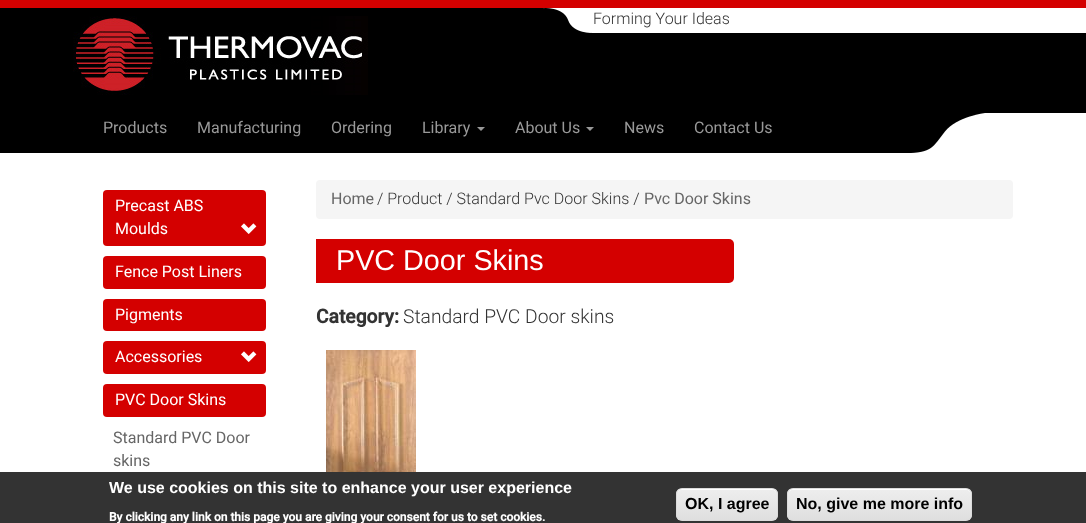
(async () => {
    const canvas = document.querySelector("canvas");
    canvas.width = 1086;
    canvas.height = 523;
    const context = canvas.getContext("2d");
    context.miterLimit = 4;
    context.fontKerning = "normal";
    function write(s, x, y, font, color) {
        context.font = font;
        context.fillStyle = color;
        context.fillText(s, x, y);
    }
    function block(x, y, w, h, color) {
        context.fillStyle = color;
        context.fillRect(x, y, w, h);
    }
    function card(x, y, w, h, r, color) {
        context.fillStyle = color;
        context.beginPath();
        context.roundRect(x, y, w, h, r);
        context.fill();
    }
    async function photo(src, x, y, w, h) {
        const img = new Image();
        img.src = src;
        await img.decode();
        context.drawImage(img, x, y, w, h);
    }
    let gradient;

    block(0, 0, 1086, 523, "rgb(255, 255, 255)");
    block(0, 8, 1086, 105, "rgb(0, 0, 0)");
    block(0, 0, 1086, 8, "rgb(212, 0, 0)");
    block(543, 8, 543, 25, "rgb(255, 255, 255)");
    await photo("media/1.png", 543, 8, 49, 25);
    write("Forming Your Ideas", 593, 24, "300 16px Roboto", "rgb(51, 51, 51)");
    block(0, 113, 905, 40, "rgb(0, 0, 0)");
    await photo("media/2.png", 905, 113, 80, 40);
    await photo("media/3.png", 73, 16, 295, 79);
    write("Products", 103, 133, "16px Roboto", "rgb(153, 153, 153)");
    write("Manufacturing", 197, 133, "16px Roboto", "rgb(153, 153, 153)");
    write("Ordering", 331, 133, "16px Roboto", "rgb(153, 153, 153)");
    write("Library", 422, 133, "16px Roboto", "rgb(153, 153, 153)");
    context.beginPath();
    context.moveTo(477, 127);
    context.lineTo(485, 127);
    context.lineTo(481, 131);
    context.closePath();
    context.fill();
    write("About Us", 515, 133, "16px Roboto", "rgb(153, 153, 153)");
    context.beginPath();
    context.moveTo(586, 127);
    context.lineTo(594, 127);
    context.lineTo(590, 131);
    context.closePath();
    context.fill();
    write("News", 624, 133, "16px Roboto", "rgb(153, 153, 153)");
    write("Contact Us", 694, 133, "16px Roboto", "rgb(153, 153, 153)");
    card(103, 190, 163, 56, 4, "rgb(212, 0, 0)");
    write("Precast ABS", 115, 211, "16px Roboto", "rgb(255, 255, 255)");
    write("Moulds", 115, 234, "16px Roboto", "rgb(255, 255, 255)");
    await photo("media/4.png", 241, 223, 16, 11);
    card(103, 256, 163, 33, 4, "rgb(212, 0, 0)");
    write("Fence Post Liners", 115, 277, "16px Roboto", "rgb(255, 255, 255)");
    card(103, 299, 163, 32, 4, "rgb(212, 0, 0)");
    write("Pigments", 115, 320, "16px Roboto", "rgb(255, 255, 255)");
    card(103, 341, 163, 33, 4, "rgb(212, 0, 0)");
    write("Accessories", 115, 362, "16px Roboto", "rgb(255, 255, 255)");
    await photo("media/4.png", 241, 351, 16, 11);
    card(103, 384, 163, 33, 4, "rgb(212, 0, 0)");
    write("PVC Door Skins", 115, 405, "16px Roboto", "rgb(255, 255, 255)");
    write("Standard PVC Door", 113, 443, "16px Roboto", "rgb(102, 102, 102)");
    write("skins", 113, 466, "16px Roboto", "rgb(102, 102, 102)");
    card(316, 180, 697, 39, 4, "rgb(245, 245, 245)");
    write("Home", 331, 204, "16px Roboto", "rgb(102, 102, 102)");
    write("/ Product / Standard Pvc Door Skins /", 377, 204, "300 16px Roboto", "rgb(51, 51, 51)");
    write("Pvc Door Skins", 644, 204, "16px Roboto", "rgb(102, 102, 102)");
    context.fillStyle = "rgb(212, 0, 0)";
    context.beginPath();
    context.roundRect(316, 239, 418, 44, [0, 5, 5, 0]);
    context.fill();
    write("PVC Door Skins", 336, 270, "28.75px Liberation Sans", "rgb(255, 255, 255)");
    write("Category:", 316, 323, "bold 19.25px Roboto", "rgb(51, 51, 51)");
    write("Standard PVC Door skins", 403, 323, "300 19.25px Roboto", "rgb(51, 51, 51)");
    await photo("media/5.png", 326, 350, 90, 122);
    block(0, 472, 1086, 51, "rgb(51, 51, 51)");
    write("We use cookies on this site to enhance your user experience", 109, 493, "bold 16px Liberation Sans", "rgb(255, 255, 255)");
    write("By clicking any link on this page you are giving your consent for us to set cookies.", 109, 521, "bold 12px Roboto", "rgb(255, 255, 255)");
    context.save();
    context.beginPath();
    context.roundRect(676, 488, 102, 33, 6);
    context.clip();
    gradient = context.createLinearGradient(727, 489, 727, 520);
    gradient.addColorStop(0.05, "rgb(237, 237, 237)");
    gradient.addColorStop(1, "rgb(223, 223, 223)");
    context.fillStyle = gradient;
    context.fillRect(676, 489, 102, 31);
    context.restore();
    context.beginPath();
    context.moveTo(682, 490);
    context.lineTo(772, 490);
    context.bezierCurveTo(775, 490, 777, 492, 777, 495);
    context.bezierCurveTo(777, 485, 762, 489, 757, 489);
    context.lineTo(697, 489);
    context.bezierCurveTo(692, 489, 677, 485, 677, 495);
    context.bezierCurveTo(677, 492, 679, 490, 682, 490);
    context.closePath();
    context.fill();
    context.beginPath();
    context.roundRect(676.5, 488.5, 101, 32, 5.5);
    context.strokeStyle = "rgb(220, 220, 220)";
    context.stroke();
    write("OK, I agree", 685, 509, "bold 16px Liberation Sans", "rgb(0, 0, 0)");
    context.save();
    context.beginPath();
    context.roundRect(787, 488, 185, 33, 6);
    context.clip();
    gradient = context.createLinearGradient(880, 489, 880, 520);
    gradient.addColorStop(0.05, "rgb(237, 237, 237)");
    gradient.addColorStop(1, "rgb(223, 223, 223)");
    context.fillStyle = gradient;
    context.fillRect(787, 489, 185, 31);
    context.restore();
    context.fillStyle = "rgb(255, 255, 255)";
    context.beginPath();
    context.moveTo(793, 490);
    context.lineTo(966, 490);
    context.bezierCurveTo(969, 490, 971, 492, 971, 495);
    context.bezierCurveTo(971, 492, 970, 490, 967, 489);
    context.lineTo(792, 489);
    context.bezierCurveTo(789, 490, 788, 492, 788, 495);
    context.bezierCurveTo(788, 492, 790, 490, 793, 490);
    context.closePath();
    context.fill();
    context.beginPath();
    context.roundRect(787.5, 488.5, 184, 32, 5.5);
    context.stroke();
    write("No, give me more info", 796, 509, "bold 16px Liberation Sans", "rgb(0, 0, 0)");
})();
